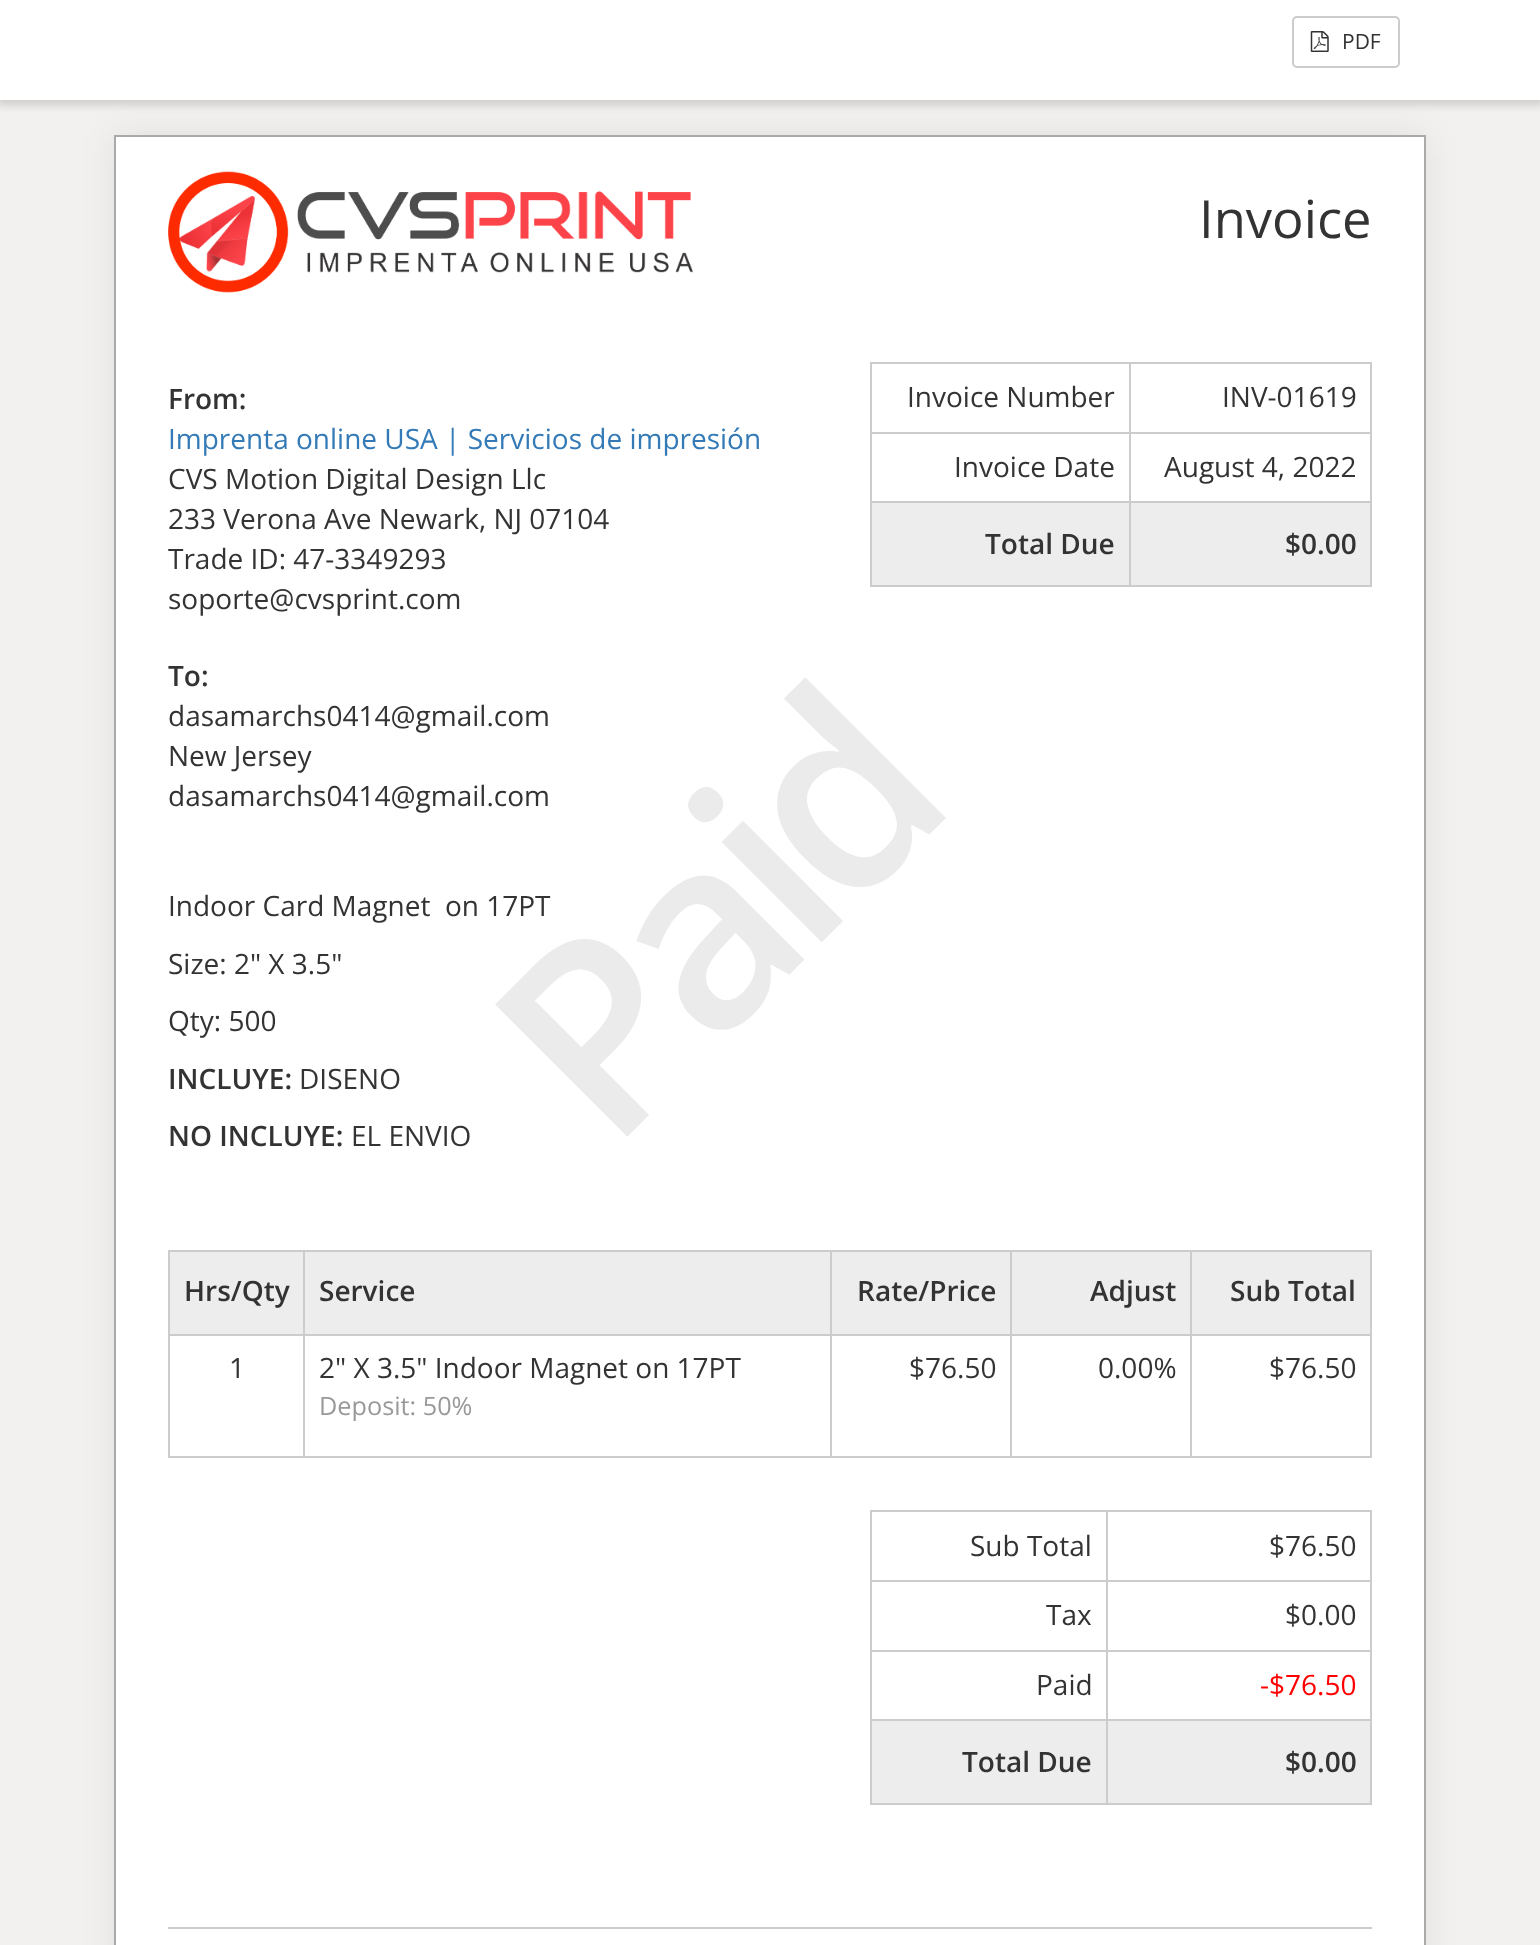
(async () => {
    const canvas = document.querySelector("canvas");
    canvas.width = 1540;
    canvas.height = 1945;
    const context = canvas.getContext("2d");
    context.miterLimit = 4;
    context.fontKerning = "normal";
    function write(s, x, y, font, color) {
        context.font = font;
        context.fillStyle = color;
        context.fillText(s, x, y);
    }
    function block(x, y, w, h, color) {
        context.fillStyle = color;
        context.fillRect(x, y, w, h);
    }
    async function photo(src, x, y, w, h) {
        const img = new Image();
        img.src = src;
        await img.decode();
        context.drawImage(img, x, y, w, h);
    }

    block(0, 0, 1540, 1945, "rgb(242, 241, 239)");
    context.fillStyle = "rgba(0, 0, 0, 0.15)";
    context.filter = "blur(4.5px)";
    context.beginPath();
    context.rect(-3, -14, 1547, 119);
    context.fill();
    context.filter = "none";
    block(0, 0, 1540, 100, "rgb(255, 255, 255)");
    context.beginPath();
    context.roundRect(1293, 17, 106, 50, 4);
    context.strokeStyle = "rgb(204, 204, 204)";
    context.lineWidth = 2;
    context.stroke();
    await photo("media/1.png", 1310, 31, 19, 21);
    write("PDF", 1342, 49, "21px Open Sans", "rgb(51, 51, 51)");
    context.fillStyle = "rgba(0, 0, 0, 0.07)";
    context.filter = "blur(17.5px)";
    context.beginPath();
    context.rect(114, 135, 1312, 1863);
    context.fill();
    context.filter = "none";
    context.fillStyle = "rgb(255, 255, 255)";
    context.beginPath();
    context.rect(115, 136, 1310, 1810);
    context.fill();
    context.strokeStyle = "rgb(170, 170, 170)";
    context.stroke();
    await photo("media/2.png", 168, 171, 525, 122);
    write("Invoice", 1199, 238, "52.5px Open Sans", "rgb(51, 51, 51)");
    write("From:", 168, 409, "600 28px Open Sans", "rgb(51, 51, 51)");
    write("Imprenta online USA | Servicios de impresión", 168, 449, "28px Open Sans", "rgb(51, 122, 183)");
    write("CVS Motion Digital Design Llc", 168, 489, "28px Open Sans", "rgb(51, 51, 51)");
    write("233 Verona Ave Newark, NJ 07104", 168, 529, "28px Open Sans", "rgb(51, 51, 51)");
    write("Trade ID: 47-3349293", 168, 569, "28px Open Sans", "rgb(51, 51, 51)");
    write("soporte@cvsprint.com", 168, 609, "28px Open Sans", "rgb(51, 51, 51)");
    block(870, 362, 502, 2, "rgb(204, 204, 204)");
    block(1370, 362, 2, 224, "rgb(204, 204, 204)");
    block(870, 585, 502, 2, "rgb(204, 204, 204)");
    block(870, 362, 2, 224, "rgb(204, 204, 204)");
    write("Invoice Number", 907, 407, "28px Open Sans", "rgb(51, 51, 51)");
    block(1129, 432, 243, 2, "rgb(204, 204, 204)");
    block(1129, 501, 243, 2, "rgb(204, 204, 204)");
    block(1129, 501, 2, 85, "rgb(204, 204, 204)");
    block(870, 501, 261, 2, "rgb(204, 204, 204)");
    block(1129, 432, 2, 70, "rgb(204, 204, 204)");
    block(870, 432, 261, 2, "rgb(204, 204, 204)");
    block(1129, 362, 2, 72, "rgb(204, 204, 204)");
    write("INV-01619", 1222, 407, "28px Open Sans", "rgb(51, 51, 51)");
    write("Invoice Date", 954, 477, "28px Open Sans", "rgb(51, 51, 51)");
    write("August 4, 2022", 1164, 477, "28px Open Sans", "rgb(51, 51, 51)");
    block(872, 503, 257, 82, "rgb(237, 237, 237)");
    write("Total Due", 985, 554, "600 28px Open Sans", "rgb(51, 51, 51)");
    block(1131, 503, 239, 82, "rgb(237, 237, 237)");
    write("$0.00", 1285, 554, "600 28px Open Sans", "rgb(51, 51, 51)");
    write("To:", 168, 686, "600 28px Open Sans", "rgb(51, 51, 51)");
    write("dasamarchs0414@gmail.com", 168, 726, "28px Open Sans", "rgb(51, 51, 51)");
    write("New Jersey", 168, 766, "28px Open Sans", "rgb(51, 51, 51)");
    write("dasamarchs0414@gmail.com", 168, 806, "28px Open Sans", "rgb(51, 51, 51)");
    write("Indoor Card Magnet  on 17PT", 168, 916, "28px Open Sans", "rgb(51, 51, 51)");
    context.letterSpacing = "-17.5px";
    context.font = "600 262px Open Sans";
    context.fillStyle = "rgb(235, 235, 235)";
    context.save();
    context.translate(610, 1154);
    context.rotate(-45 * Math.PI / 180);
    context.fillText("Paid", 0, 0);
    context.restore();
    context.letterSpacing = "0px";
    write("Size: 2\" X 3.5\"", 168, 974, "28px Open Sans", "rgb(51, 51, 51)");
    write("Qty: 500", 168, 1031, "28px Open Sans", "rgb(51, 51, 51)");
    write("INCLUYE:", 168, 1089, "600 28px Open Sans", "rgb(51, 51, 51)");
    write("DISENO", 299, 1089, "28px Open Sans", "rgb(51, 51, 51)");
    write("NO INCLUYE:", 168, 1146, "600 28px Open Sans", "rgb(51, 51, 51)");
    write("EL ENVIO", 351, 1146, "28px Open Sans", "rgb(51, 51, 51)");
    block(168, 1250, 1204, 2, "rgb(204, 204, 204)");
    block(1370, 1250, 2, 208, "rgb(204, 204, 204)");
    block(168, 1456, 1204, 2, "rgb(204, 204, 204)");
    block(168, 1250, 2, 208, "rgb(204, 204, 204)");
    block(170, 1252, 133, 82, "rgb(237, 237, 237)");
    write("Hrs/Qty", 184, 1301, "600 28px Open Sans", "rgb(51, 51, 51)");
    block(305, 1252, 525, 82, "rgb(237, 237, 237)");
    block(1190, 1334, 182, 2, "rgb(204, 204, 204)");
    block(1190, 1334, 2, 124, "rgb(204, 204, 204)");
    block(1010, 1334, 182, 2, "rgb(204, 204, 204)");
    block(1010, 1334, 2, 124, "rgb(204, 204, 204)");
    block(830, 1334, 182, 2, "rgb(204, 204, 204)");
    block(830, 1334, 2, 124, "rgb(204, 204, 204)");
    block(303, 1334, 528, 2, "rgb(204, 204, 204)");
    block(303, 1334, 2, 124, "rgb(204, 204, 204)");
    block(168, 1334, 137, 2, "rgb(204, 204, 204)");
    block(303, 1250, 2, 85, "rgb(204, 204, 204)");
    write("Service", 319, 1301, "600 28px Open Sans", "rgb(51, 51, 51)");
    block(832, 1252, 178, 82, "rgb(237, 237, 237)");
    block(830, 1250, 2, 85, "rgb(204, 204, 204)");
    write("Rate/Price", 857, 1301, "600 28px Open Sans", "rgb(51, 51, 51)");
    block(1012, 1252, 178, 82, "rgb(237, 237, 237)");
    block(1010, 1250, 2, 85, "rgb(204, 204, 204)");
    write("Adjust", 1090, 1301, "600 28px Open Sans", "rgb(51, 51, 51)");
    block(1192, 1252, 178, 82, "rgb(237, 237, 237)");
    block(1190, 1250, 2, 85, "rgb(204, 204, 204)");
    write("Sub Total", 1230, 1301, "600 28px Open Sans", "rgb(51, 51, 51)");
    write("1", 229, 1378, "28px Open Sans", "rgb(51, 51, 51)");
    write("2\" X 3.5\" Indoor Magnet on 17PT", 319, 1378, "28px Open Sans", "rgb(51, 51, 51)");
    write("Deposit: 50%", 319, 1415, "25.25px Open Sans", "rgb(153, 153, 153)");
    write("$76.50", 909, 1378, "28px Open Sans", "rgb(51, 51, 51)");
    write("0.00%", 1098, 1378, "28px Open Sans", "rgb(51, 51, 51)");
    write("$76.50", 1269, 1378, "28px Open Sans", "rgb(51, 51, 51)");
    block(870, 1510, 502, 2, "rgb(204, 204, 204)");
    block(1370, 1510, 2, 294, "rgb(204, 204, 204)");
    block(870, 1803, 502, 2, "rgb(204, 204, 204)");
    block(870, 1510, 2, 294, "rgb(204, 204, 204)");
    write("Sub Total", 970, 1556, "28px Open Sans", "rgb(51, 51, 51)");
    block(1106, 1580, 266, 2, "rgb(204, 204, 204)");
    block(1106, 1650, 266, 2, "rgb(204, 204, 204)");
    block(1106, 1719, 266, 2, "rgb(204, 204, 204)");
    block(1106, 1719, 2, 85, "rgb(204, 204, 204)");
    block(870, 1719, 238, 2, "rgb(204, 204, 204)");
    block(1106, 1650, 2, 70, "rgb(204, 204, 204)");
    block(870, 1650, 238, 2, "rgb(204, 204, 204)");
    block(1106, 1580, 2, 72, "rgb(204, 204, 204)");
    block(870, 1580, 238, 2, "rgb(204, 204, 204)");
    block(1106, 1510, 2, 72, "rgb(204, 204, 204)");
    write("$76.50", 1269, 1556, "28px Open Sans", "rgb(51, 51, 51)");
    write("Tax", 1046, 1625, "28px Open Sans", "rgb(51, 51, 51)");
    write("$0.00", 1285, 1625, "28px Open Sans", "rgb(51, 51, 51)");
    write("Paid", 1036, 1695, "28px Open Sans", "rgb(51, 51, 51)");
    write("-$76.50", 1260, 1695, "28px Open Sans", "rgb(255, 0, 0)");
    block(872, 1721, 234, 82, "rgb(237, 237, 237)");
    write("Total Due", 962, 1772, "600 28px Open Sans", "rgb(51, 51, 51)");
    block(1108, 1721, 262, 82, "rgb(237, 237, 237)");
    write("$0.00", 1285, 1772, "600 28px Open Sans", "rgb(51, 51, 51)");
    block(168, 1927, 1204, 2, "rgb(204, 204, 204)");
})();
